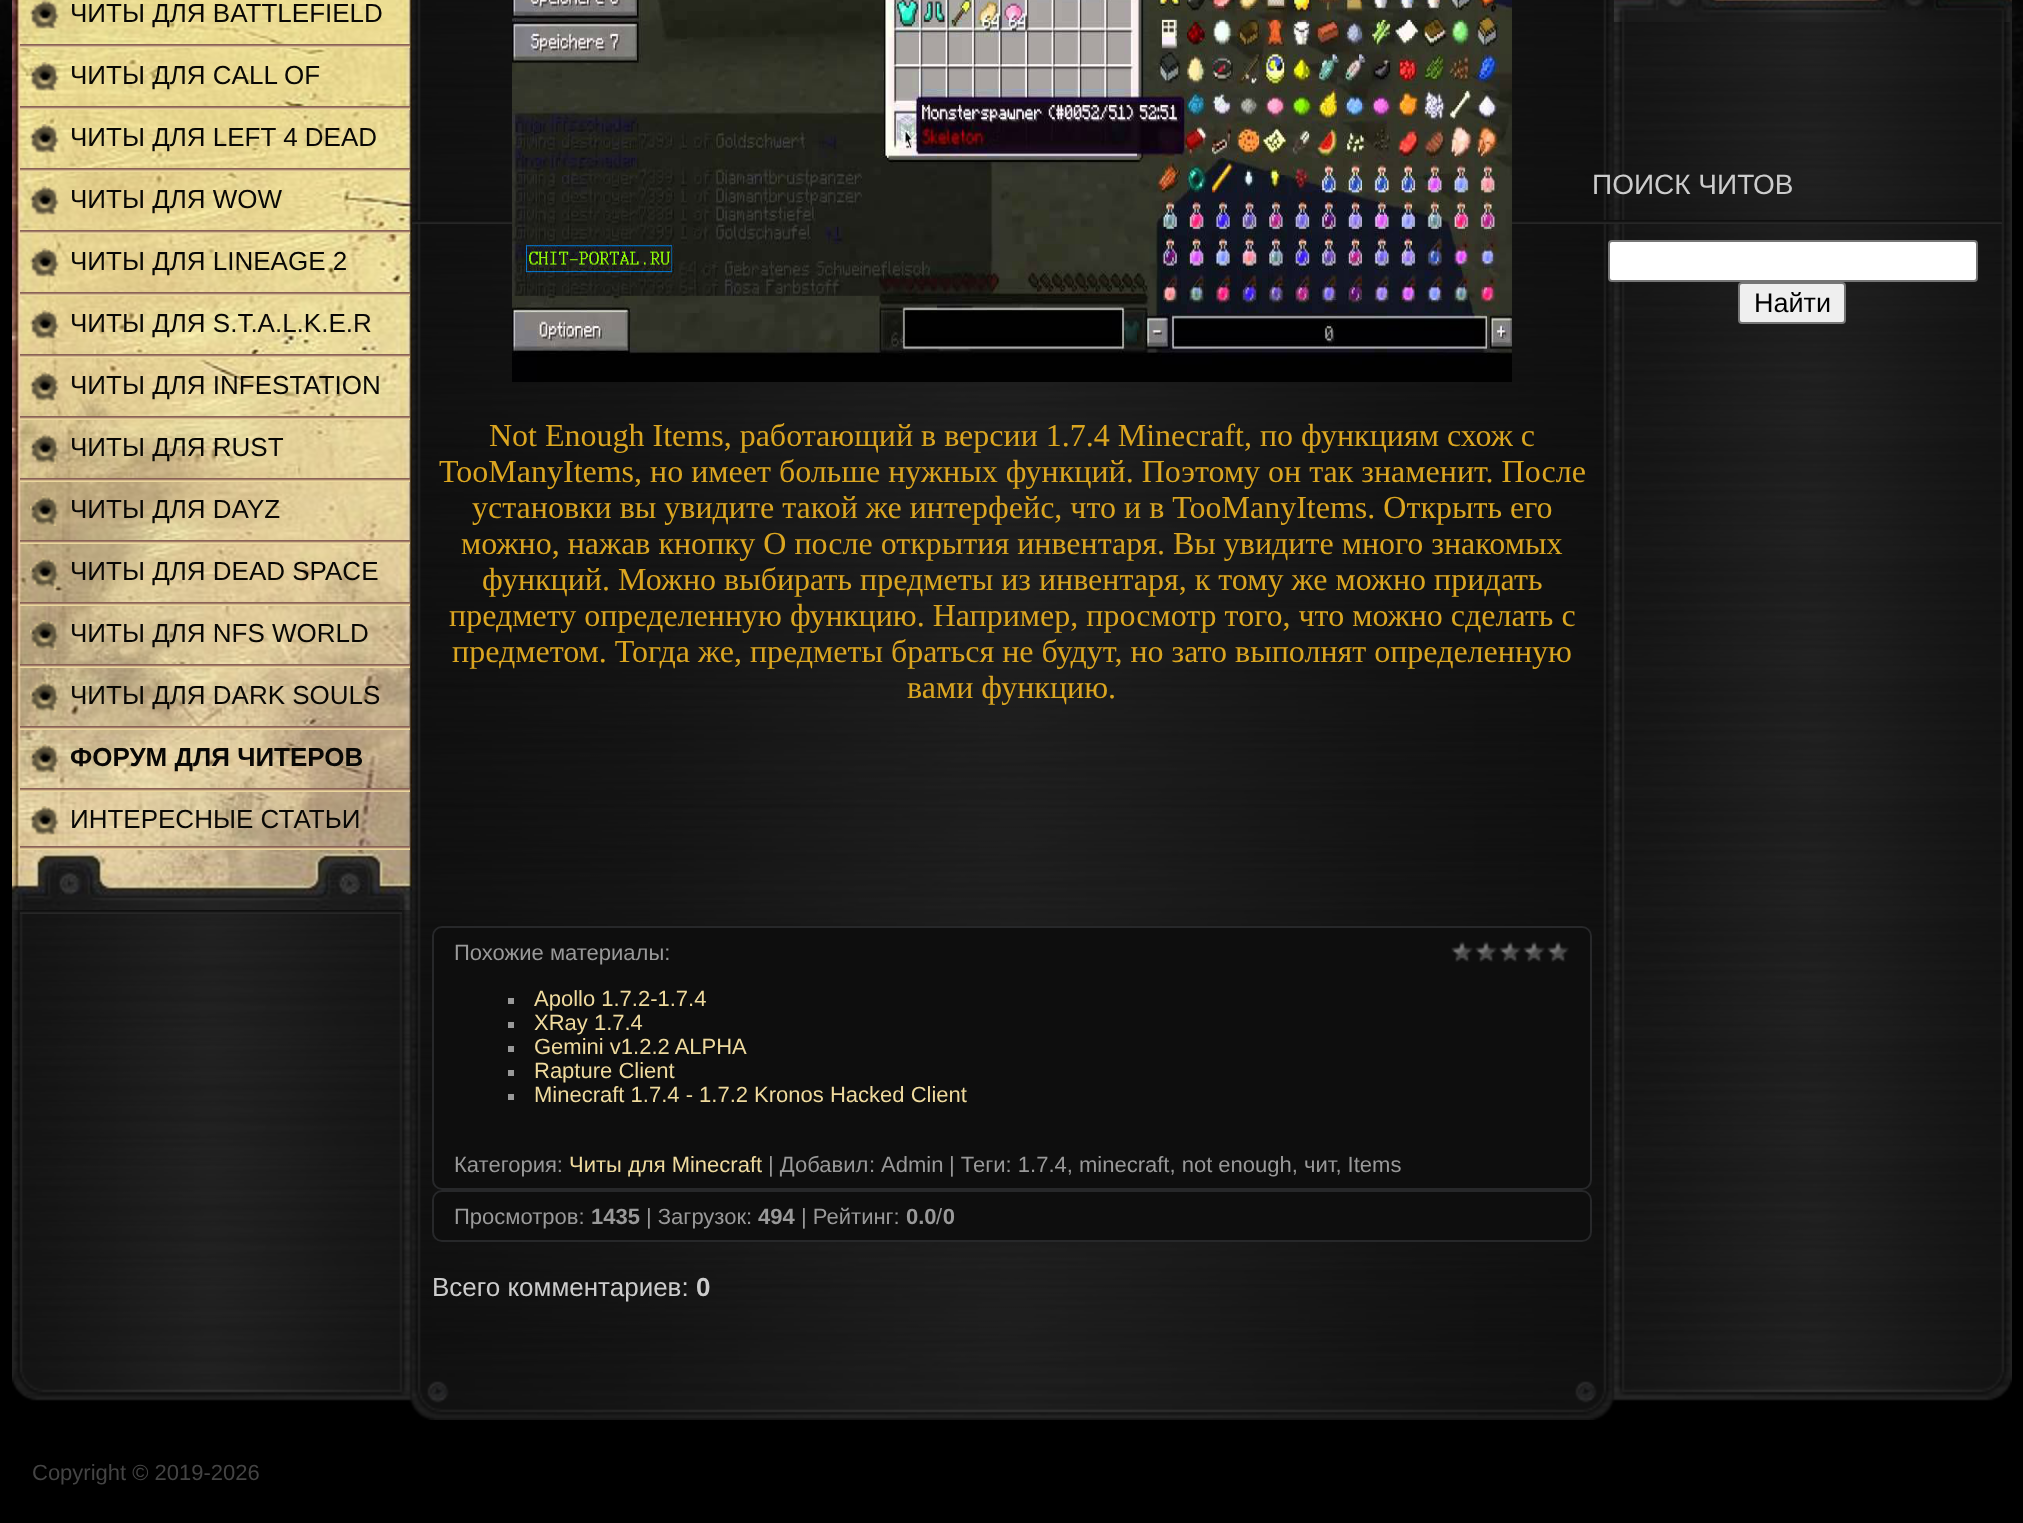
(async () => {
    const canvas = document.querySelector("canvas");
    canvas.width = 2023;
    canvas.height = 1523;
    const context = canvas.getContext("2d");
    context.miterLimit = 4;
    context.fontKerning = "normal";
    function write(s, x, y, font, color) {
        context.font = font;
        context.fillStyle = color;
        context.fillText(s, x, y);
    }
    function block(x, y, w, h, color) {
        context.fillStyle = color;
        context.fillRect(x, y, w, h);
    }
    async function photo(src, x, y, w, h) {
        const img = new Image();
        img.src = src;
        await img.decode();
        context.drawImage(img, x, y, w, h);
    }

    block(0, 0, 2023, 1523, "rgb(0, 0, 0)");
    await photo("media/1.png", 0, 0, 2023, 142);
    await photo("media/2.png", 12, 0, 2000, 1372);
    await photo("media/3.png", 12, 1372, 2000, 48);
    await photo("media/4.png", 12, 0, 400, 910);
    await photo("media/5.png", 20, 846, 390, 4);
    await photo("media/6.png", 30, 0, 29, 30);
    write("ЧИТЫ ДЛЯ BATTLEFIELD", 70, 22, "26px Liberation Sans", "rgb(8, 7, 5)");
    await photo("media/5.png", 20, 44, 390, 4);
    await photo("media/7.png", 30, 62, 29, 30);
    write("ЧИТЫ ДЛЯ CALL OF", 70, 84, "26px Liberation Sans", "rgb(8, 7, 5)");
    await photo("media/5.png", 20, 106, 390, 4);
    await photo("media/8.png", 30, 124, 29, 30);
    write("ЧИТЫ ДЛЯ LEFT 4 DEAD", 70, 146, "26px Liberation Sans", "rgb(8, 7, 5)");
    await photo("media/5.png", 20, 168, 390, 4);
    await photo("media/9.png", 30, 186, 29, 30);
    write("ЧИТЫ ДЛЯ WOW", 70, 208, "26px Liberation Sans", "rgb(8, 7, 5)");
    await photo("media/5.png", 20, 230, 390, 4);
    await photo("media/10.png", 30, 248, 29, 30);
    write("ЧИТЫ ДЛЯ LINEAGE 2", 70, 270, "26px Liberation Sans", "rgb(8, 7, 5)");
    await photo("media/5.png", 20, 292, 390, 4);
    await photo("media/11.png", 30, 310, 29, 30);
    write("ЧИТЫ ДЛЯ S.T.A.L.K.E.R", 70, 332, "26px Liberation Sans", "rgb(8, 7, 5)");
    await photo("media/5.png", 20, 354, 390, 4);
    await photo("media/12.png", 30, 372, 29, 30);
    write("ЧИТЫ ДЛЯ INFESTATION", 70, 394, "26px Liberation Sans", "rgb(8, 7, 5)");
    await photo("media/5.png", 20, 416, 390, 4);
    await photo("media/13.png", 30, 434, 29, 30);
    write("ЧИТЫ ДЛЯ RUST", 70, 456, "26px Liberation Sans", "rgb(8, 7, 5)");
    await photo("media/5.png", 20, 478, 390, 4);
    await photo("media/14.png", 30, 496, 29, 30);
    write("ЧИТЫ ДЛЯ DAYZ", 70, 518, "26px Liberation Sans", "rgb(8, 7, 5)");
    await photo("media/5.png", 20, 540, 390, 4);
    await photo("media/15.png", 30, 558, 29, 30);
    write("ЧИТЫ ДЛЯ DEAD SPACE", 70, 580, "26px Liberation Sans", "rgb(8, 7, 5)");
    await photo("media/5.png", 20, 602, 390, 4);
    await photo("media/16.png", 30, 620, 29, 30);
    write("ЧИТЫ ДЛЯ NFS WORLD", 70, 642, "26px Liberation Sans", "rgb(8, 7, 5)");
    await photo("media/5.png", 20, 664, 390, 4);
    await photo("media/17.png", 30, 682, 29, 30);
    write("ЧИТЫ ДЛЯ DARK SOULS", 70, 704, "26px Liberation Sans", "rgb(8, 7, 5)");
    await photo("media/5.png", 20, 726, 390, 4);
    await photo("media/18.png", 30, 744, 29, 30);
    write("ФОРУМ ДЛЯ ЧИТЕРОВ", 70, 766, "bold 26px Liberation Sans", "rgb(8, 7, 5)");
    await photo("media/5.png", 20, 788, 390, 4);
    await photo("media/19.png", 30, 806, 29, 30);
    write("ИНТЕРЕСНЫЕ СТАТЬИ", 70, 828, "26px Liberation Sans", "rgb(8, 7, 5)");
    await photo("media/20.png", 20, 910, 382, 4);
    await photo("media/21.png", 1614, 0, 398, 22);
    write("ПОИСК ЧИТОВ", 1592, 194, "28px Liberation Sans", "rgb(204, 204, 204)");
    await photo("media/22.png", 412, 220, 1590, 4);
    context.fillStyle = "rgb(255, 255, 255)";
    context.beginPath();
    context.roundRect(1609, 241, 368, 40, 3);
    context.fill();
    context.strokeStyle = "rgb(118, 118, 118)";
    context.lineWidth = 2;
    context.stroke();
    context.fillStyle = "rgb(239, 239, 239)";
    context.beginPath();
    context.roundRect(1739, 283, 106, 40, 3);
    context.fill();
    context.stroke();
    write("Найти", 1754, 312, "27px Liberation Sans", "rgb(0, 0, 0)");
    await photo("media/23.png", 512, 0, 1000, 382);
    write("Not Enough Items, работающий в версии 1.7.4 Minecraft, по функциям схож с", 489, 446, "32px Liberation Serif", "rgb(218, 165, 32)");
    write("TooManyItems, но имеет больше нужных функций. Поэтому он так знаменит. После", 439, 482, "32px Liberation Serif", "rgb(218, 165, 32)");
    write("установки вы увидите такой же интерфейс, что и в TooManyItems. Открыть его", 472, 518, "32px Liberation Serif", "rgb(218, 165, 32)");
    write("можно, нажав кнопку О после открытия инвентаря. Вы увидите много знакомых", 461, 554, "32px Liberation Serif", "rgb(218, 165, 32)");
    write("функций. Можно выбирать предметы из инвентаря, к тому же можно придать", 482, 590, "32px Liberation Serif", "rgb(218, 165, 32)");
    write("предмету определенную функцию. Например, просмотр того, что можно сделать с", 449, 626, "32px Liberation Serif", "rgb(218, 165, 32)");
    write("предметом. Тогда же, предметы браться не будут, но зато выполнят определенную", 452, 662, "32px Liberation Serif", "rgb(218, 165, 32)");
    write("вами функцию.", 907, 698, "32px Liberation Serif", "rgb(218, 165, 32)");
    context.fillStyle = "rgb(14, 14, 14)";
    context.beginPath();
    context.roundRect(433, 927, 1158, 262, 9);
    context.fill();
    context.strokeStyle = "rgb(39, 40, 42)";
    context.stroke();
    write("Похожие материалы:", 454, 960, "22px Liberation Sans", "rgb(153, 153, 153)");
    block(508, 998, 6, 6, "rgb(153, 153, 153)");
    write("Apollo 1.7.2-1.7.4", 534, 1006, "22px Liberation Sans", "rgb(239, 218, 157)");
    block(508, 1022, 6, 6, "rgb(153, 153, 153)");
    write("XRay 1.7.4", 534, 1030, "22px Liberation Sans", "rgb(239, 218, 157)");
    block(508, 1046, 6, 6, "rgb(153, 153, 153)");
    write("Gemini v1.2.2 ALPHA", 534, 1054, "22px Liberation Sans", "rgb(239, 218, 157)");
    block(508, 1070, 6, 6, "rgb(153, 153, 153)");
    write("Rapture Client", 534, 1078, "22px Liberation Sans", "rgb(239, 218, 157)");
    block(508, 1094, 6, 6, "rgb(153, 153, 153)");
    write("Minecraft 1.7.4 - 1.7.2 Kronos Hacked Client", 534, 1102, "22px Liberation Sans", "rgb(239, 218, 157)");
    await photo("media/24.png", 1451, 941, 118, 21);
    write("Категория:", 454, 1172, "22px Liberation Sans", "rgb(153, 153, 153)");
    write("Читы для Minecraft", 569, 1172, "22px Liberation Sans", "rgb(239, 218, 157)");
    write("| Добавил", 768, 1172, "22px Liberation Sans", "rgb(153, 153, 153)");
    context.wordSpacing = "1px";
    write(": Admin", 869, 1172, "22px Liberation Sans", "rgb(153, 153, 153)");
    context.wordSpacing = "0px";
    write("| Теги: 1.7.4, minecraft, not enough, чит, Items", 949, 1172, "22px Liberation Sans", "rgb(153, 153, 153)");
    context.fillStyle = "rgb(14, 14, 14)";
    context.beginPath();
    context.roundRect(433, 1191, 1158, 50, 9);
    context.fill();
    context.stroke();
    write("Просмотров:", 454, 1224, "22px Liberation Sans", "rgb(153, 153, 153)");
    write("1435", 591, 1224, "bold 22px Liberation Sans", "rgb(153, 153, 153)");
    write("| Загрузок:", 646, 1224, "22px Liberation Sans", "rgb(153, 153, 153)");
    write("494", 758, 1224, "bold 22px Liberation Sans", "rgb(153, 153, 153)");
    write("| Рейтинг:", 801, 1224, "22px Liberation Sans", "rgb(153, 153, 153)");
    write("0.0 0", 906, 1224, "bold 22px Liberation Sans", "rgb(153, 153, 153)");
    write("/", 936, 1224, "22px Liberation Sans", "rgb(153, 153, 153)");
    write("Всего комментариев:", 432, 1296, "26px Liberation Sans", "rgb(204, 204, 204)");
    write("0", 696, 1296, "bold 26px Liberation Sans", "rgb(204, 204, 204)");
    write("Copyright © 2019-2026", 32, 1480, "22px Liberation Sans", "rgb(68, 68, 68)");
})();
